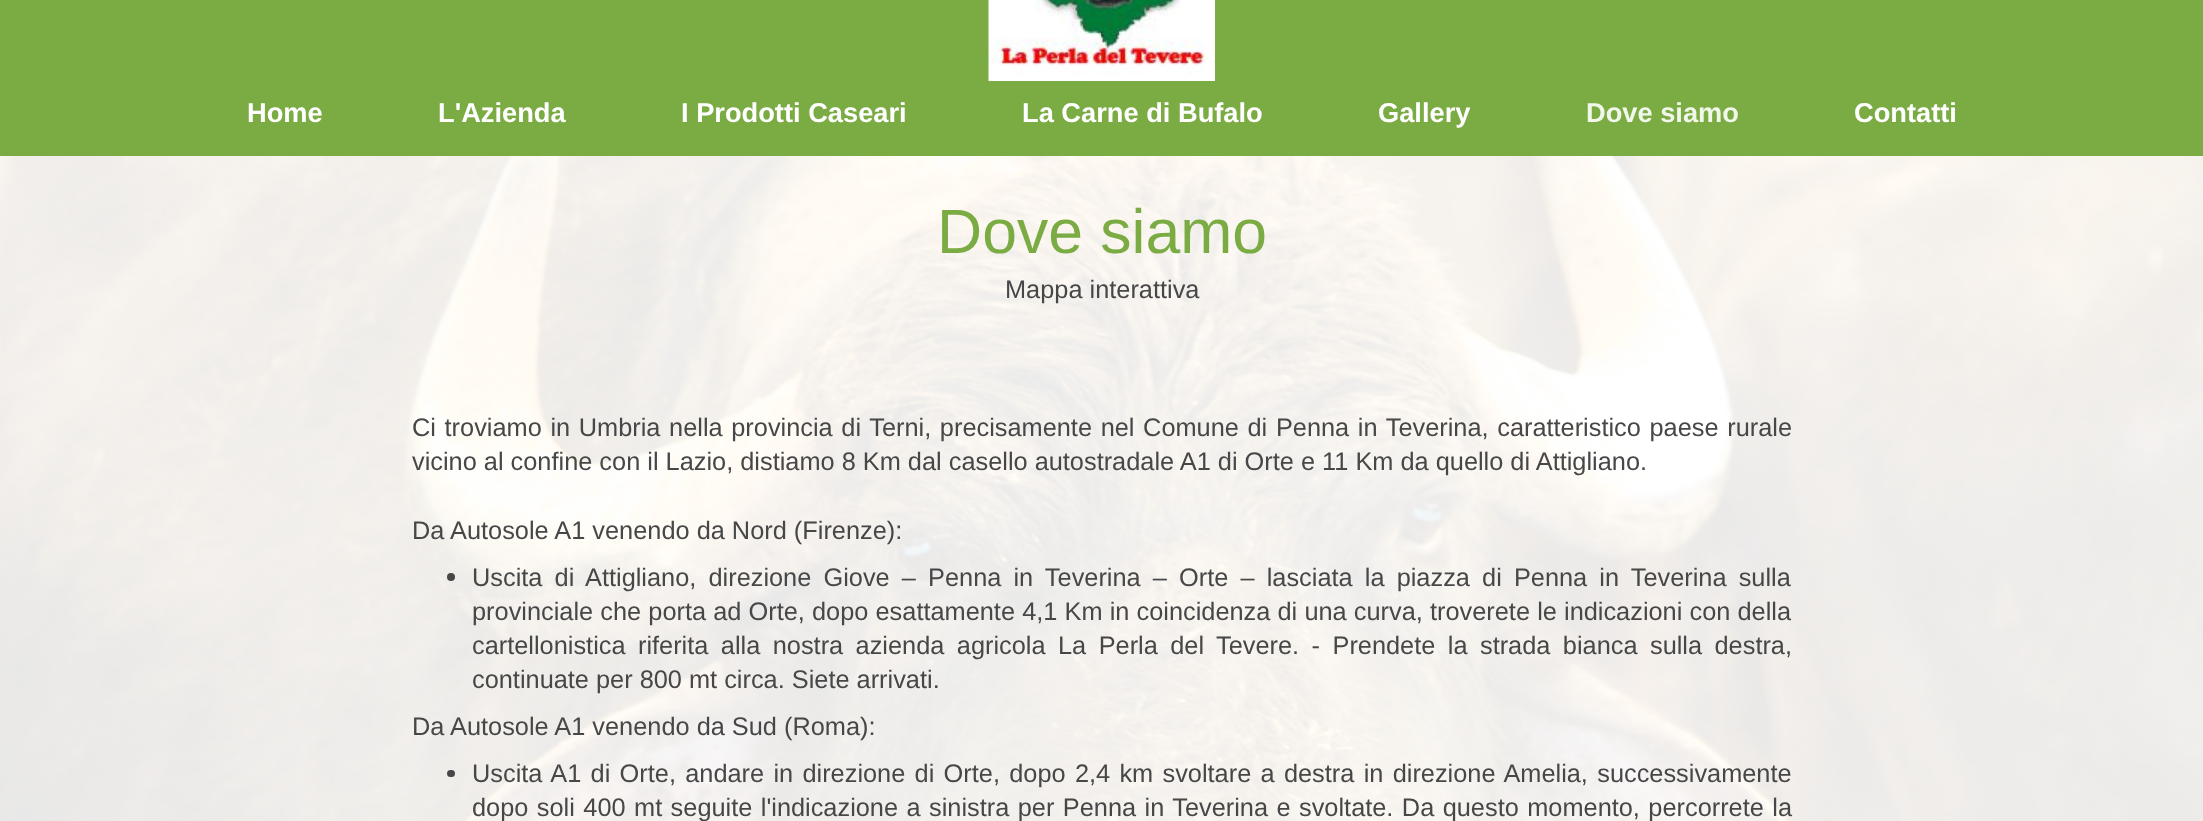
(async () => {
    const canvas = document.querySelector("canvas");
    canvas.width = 2203;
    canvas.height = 821;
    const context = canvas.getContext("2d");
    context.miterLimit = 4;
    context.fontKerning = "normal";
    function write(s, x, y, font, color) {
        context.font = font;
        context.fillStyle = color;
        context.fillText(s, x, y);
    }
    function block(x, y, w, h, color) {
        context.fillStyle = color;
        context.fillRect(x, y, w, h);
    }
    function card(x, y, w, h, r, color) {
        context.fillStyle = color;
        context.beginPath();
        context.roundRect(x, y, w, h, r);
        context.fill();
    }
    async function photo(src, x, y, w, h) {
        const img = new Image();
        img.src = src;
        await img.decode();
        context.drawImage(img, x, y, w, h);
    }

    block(0, 0, 2203, 821, "rgb(255, 255, 255)");
    await photo("media/1.png", 0, 156, 2203, 665);
    block(0, 0, 2203, 156, "rgb(123, 171, 67)");
    await photo("media/2.png", 988, 0, 227, 81);
    write("Home", 247, 122, "bold 27.25px Liberation Sans", "rgb(255, 255, 255)");
    write("L'Azienda", 438, 122, "bold 27.25px Liberation Sans", "rgb(255, 255, 255)");
    write("I Prodotti Caseari", 681, 122, "bold 27.25px Liberation Sans", "rgb(255, 255, 255)");
    write("La Carne di Bufalo", 1022, 122, "bold 27.25px Liberation Sans", "rgb(255, 255, 255)");
    write("Gallery", 1378, 122, "bold 27.25px Liberation Sans", "rgb(255, 255, 255)");
    write("Dove siamo", 1586, 122, "bold 27.25px Liberation Sans", "rgb(242, 247, 236)");
    write("Contatti", 1854, 122, "bold 27.25px Liberation Sans", "rgb(255, 255, 255)");
    block(0, 156, 2203, 665, "rgba(255, 255, 255, 0.9)");
    write("Dove siamo", 937, 253, "62.5px Liberation Sans", "rgb(123, 171, 67)");
    write("Mappa interattiva", 1005, 298, "25.35px Liberation Sans", "rgb(71, 71, 71)");
    context.wordSpacing = "1.6px";
    write("Ci troviamo in Umbria nella provincia di Terni, precisamente nel Comune di Penna in Teverina, caratteristico paese rurale", 412, 436, "25.35px Liberation Sans", "rgb(71, 71, 71)");
    context.wordSpacing = "0px";
    write("vicino al confine con il Lazio, distiamo 8 Km dal casello autostradale A1 di Orte e 11 Km da quello di Attigliano.", 412, 470, "25.35px Liberation Sans", "rgb(71, 71, 71)");
    write("Da Autosole A1 venendo da Nord (Firenze):", 412, 539, "25.35px Liberation Sans", "rgb(71, 71, 71)");
    context.beginPath();
    context.arc(451, 577, 4, 0, Math.PI * 2);
    context.fill();
    context.wordSpacing = "5.1px";
    write("Uscita di Attigliano, direzione Giove – Penna in Teverina – Orte – lasciata la piazza di Penna in Teverina sulla", 472, 586, "25.35px Liberation Sans", "rgb(71, 71, 71)");
    context.wordSpacing = "0.1px";
    write("provinciale che porta ad Orte, dopo esattamente 4,1 Km in coincidenza di una curva, troverete le indicazioni con della", 472, 620, "25.35px Liberation Sans", "rgb(71, 71, 71)");
    context.wordSpacing = "5.4px";
    write("cartellonistica riferita alla nostra azienda agricola La Perla del Tevere. - Prendete la strada bianca sulla destra,", 472, 654, "25.35px Liberation Sans", "rgb(71, 71, 71)");
    context.wordSpacing = "0px";
    write("continuate per 800 mt circa. Siete arrivati.", 472, 688, "25.35px Liberation Sans", "rgb(71, 71, 71)");
    write("Da Autosole A1 venendo da Sud (Roma):", 412, 735, "25.35px Liberation Sans", "rgb(71, 71, 71)");
    card(447, 770, 8, 7, 3.5, "rgb(71, 71, 71)");
    context.wordSpacing = "2.25px";
    write("Uscita A1 di Orte, andare in direzione di Orte, dopo 2,4 km svoltare a destra in direzione Amelia, successivamente", 472, 782, "25.35px Liberation Sans", "rgb(71, 71, 71)");
    context.wordSpacing = "1.4px";
    write("dopo soli 400 mt seguite l'indicazione a sinistra per Penna in Teverina e svoltate. Da questo momento, percorrete la", 472, 816, "25.35px Liberation Sans", "rgb(71, 71, 71)");
})();
